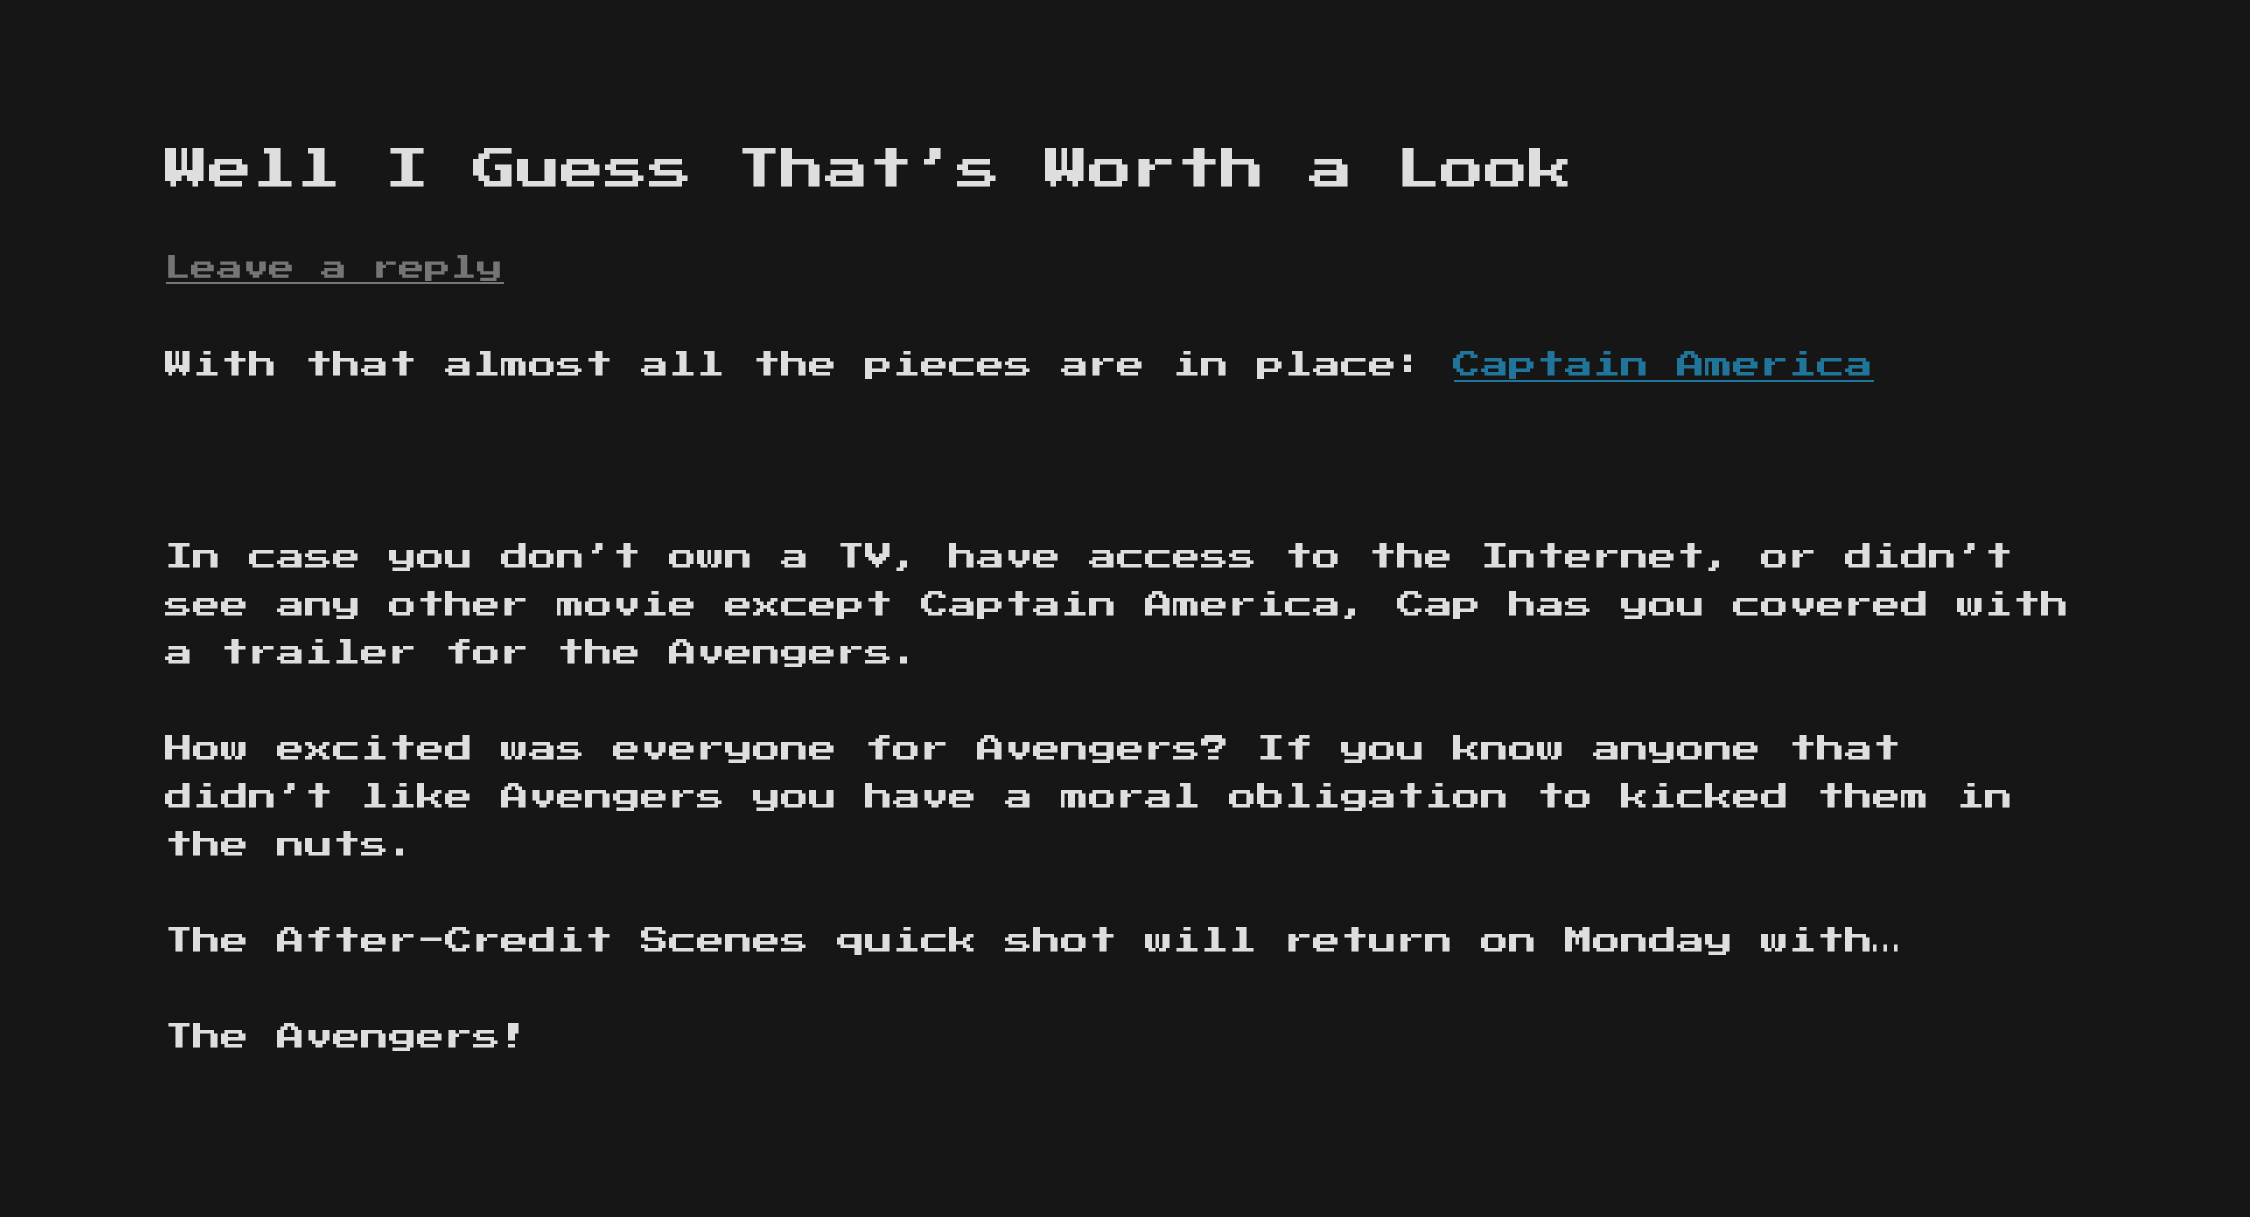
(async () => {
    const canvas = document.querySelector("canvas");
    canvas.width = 2250;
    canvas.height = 1217;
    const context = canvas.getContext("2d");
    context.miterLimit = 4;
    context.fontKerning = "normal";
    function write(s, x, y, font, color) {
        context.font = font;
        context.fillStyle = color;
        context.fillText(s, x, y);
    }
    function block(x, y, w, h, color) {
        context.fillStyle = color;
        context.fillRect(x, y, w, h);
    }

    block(0, 0, 2250, 1217, "rgb(22, 22, 22)");
    write("Well I Guess That’s Worth a Look", 165, 192, "44px 'Press Start 2P'", "rgb(222, 222, 222)");
    write("Leave a reply", 165, 281, "26px 'Press Start 2P'", "rgb(117, 117, 117)");
    block(166, 282, 338, 2, "rgb(117, 117, 117)");
    write("With that almost all the pieces are in place:", 165, 379, "28px 'Press Start 2P'", "rgb(222, 222, 222)");
    write("Captain America", 1453, 379, "28px 'Press Start 2P'", "rgb(33, 117, 155)");
    block(1454, 380, 420, 2, "rgb(33, 117, 155)");
    write("In case you don’t own a TV, have access to the Internet, or didn’t", 165, 571, "28px 'Press Start 2P'", "rgb(222, 222, 222)");
    write("see any other movie except Captain America, Cap has you covered with", 165, 619, "28px 'Press Start 2P'", "rgb(222, 222, 222)");
    write("a trailer for the Avengers.", 165, 667, "28px 'Press Start 2P'", "rgb(222, 222, 222)");
    write("How excited was everyone for Avengers? If you know anyone that", 165, 763, "28px 'Press Start 2P'", "rgb(222, 222, 222)");
    write("didn’t like Avengers you have a moral obligation to kicked them in", 165, 811, "28px 'Press Start 2P'", "rgb(222, 222, 222)");
    write("the nuts.", 165, 859, "28px 'Press Start 2P'", "rgb(222, 222, 222)");
    write("The After-Credit Scenes quick shot will return on Monday with…", 165, 955, "28px 'Press Start 2P'", "rgb(222, 222, 222)");
    write("The Avengers!", 165, 1051, "28px 'Press Start 2P'", "rgb(222, 222, 222)");
})();
